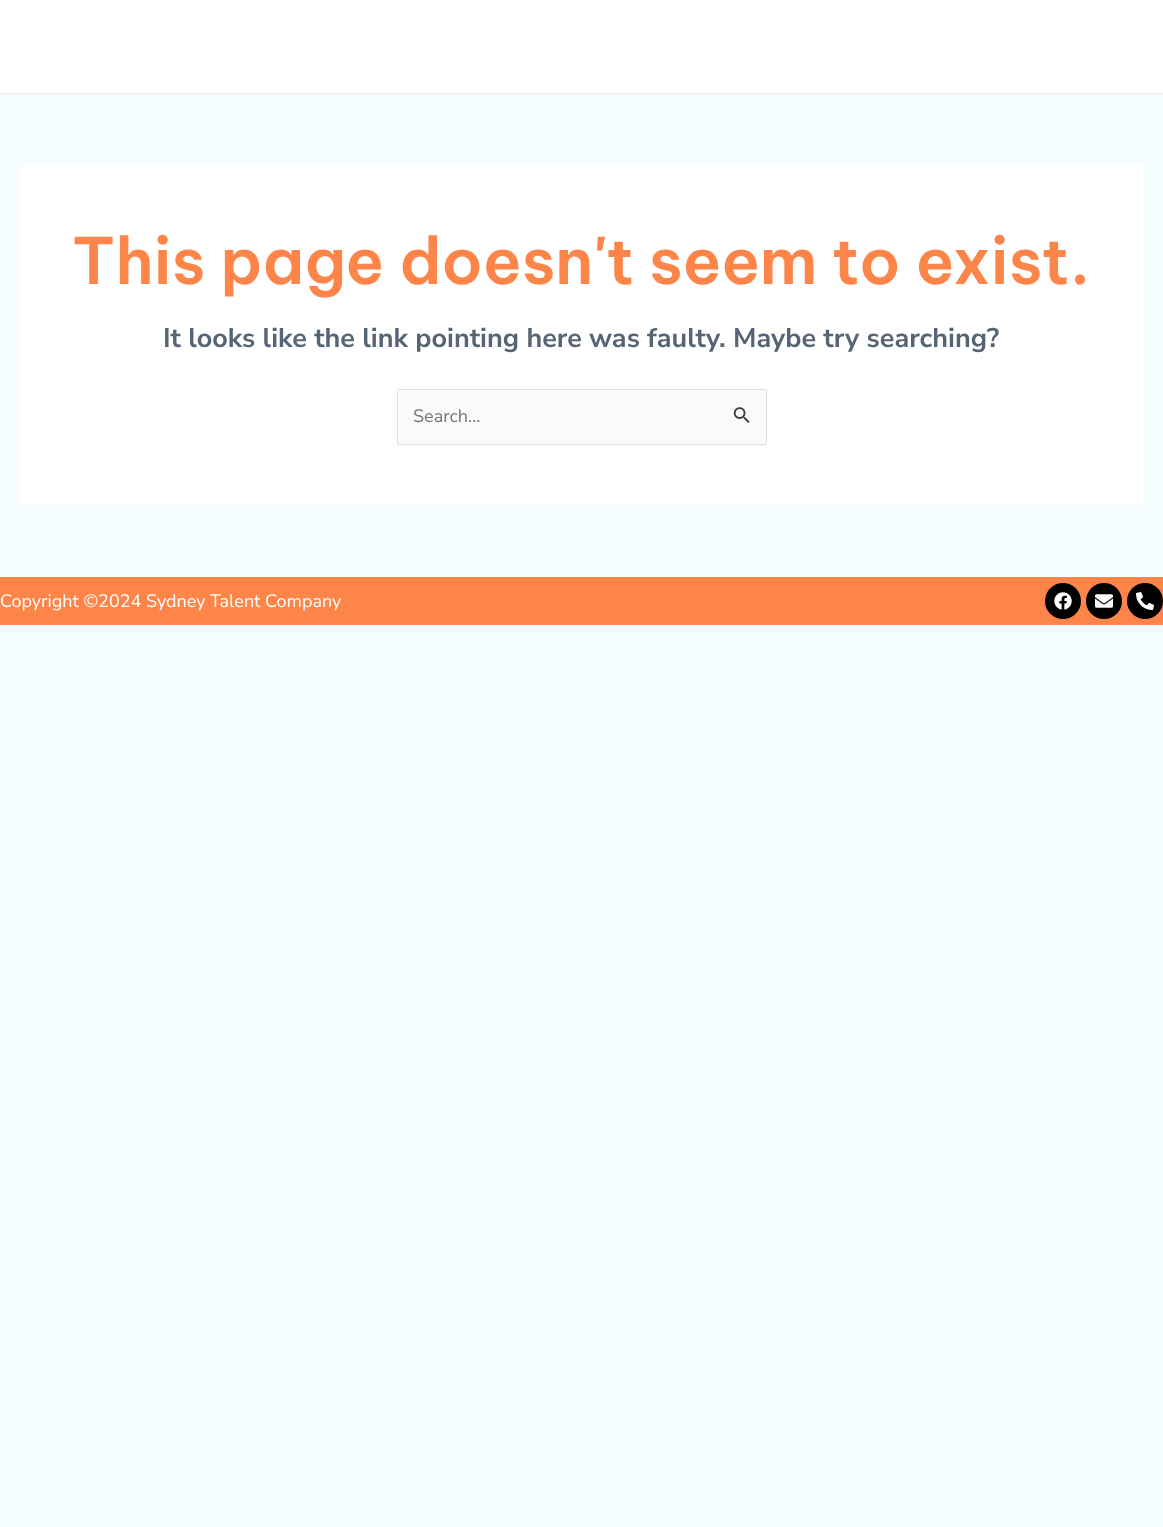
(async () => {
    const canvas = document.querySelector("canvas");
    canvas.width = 1163;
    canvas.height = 1527;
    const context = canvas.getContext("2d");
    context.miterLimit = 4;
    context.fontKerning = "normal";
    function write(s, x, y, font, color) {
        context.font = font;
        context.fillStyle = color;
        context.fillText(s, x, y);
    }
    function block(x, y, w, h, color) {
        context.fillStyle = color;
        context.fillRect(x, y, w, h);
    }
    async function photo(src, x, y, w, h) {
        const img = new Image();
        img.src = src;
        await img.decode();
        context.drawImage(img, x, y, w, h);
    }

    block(0, 0, 1163, 1527, "rgb(246, 253, 254)");
    block(0, 0, 1163, 93, "rgb(255, 255, 255)");
    block(0, 93, 1163, 1, "rgb(234, 234, 234)");
    block(20, 166, 1123, 339, "rgb(255, 255, 255)");
    write("This page doesn't seem to exist.", 72, 284, "600 64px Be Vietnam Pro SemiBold", "rgb(253, 133, 73)");
    write("It looks like the link pointing here was faulty. Maybe try searching?", 163, 347, "bold 27px Nunito Sans", "rgb(86, 100, 118)");
    context.fillStyle = "rgb(250, 250, 250)";
    context.beginPath();
    context.roundRect(397.5, 389.5, 369, 55, 1.5);
    context.fill();
    context.strokeStyle = "rgb(221, 221, 221)";
    context.stroke();
    write("Search...", 413, 422, "18px Nunito Sans", "rgb(117, 117, 117)");
    await photo("media/1.png", 733, 407, 17, 16);
    block(0, 577, 1163, 48, "rgb(253, 133, 73)");
    write("Copyright ©2024 Sydney Talent Company", 0, 607, "18px Nunito Sans", "rgb(255, 255, 255)");
    context.fillStyle = "rgb(0, 0, 0)";
    context.beginPath();
    context.arc(1063, 601, 18, 0, Math.PI * 2);
    context.fill();
    await photo("media/2.png", 1054, 592, 18, 18);
    context.beginPath();
    context.arc(1104, 601, 18, 0, Math.PI * 2);
    context.fill();
    await photo("media/3.png", 1095, 594, 18, 14);
    context.beginPath();
    context.arc(1145, 601, 18, 0, Math.PI * 2);
    context.fill();
    await photo("media/4.png", 1136, 592, 18, 18);
})();
